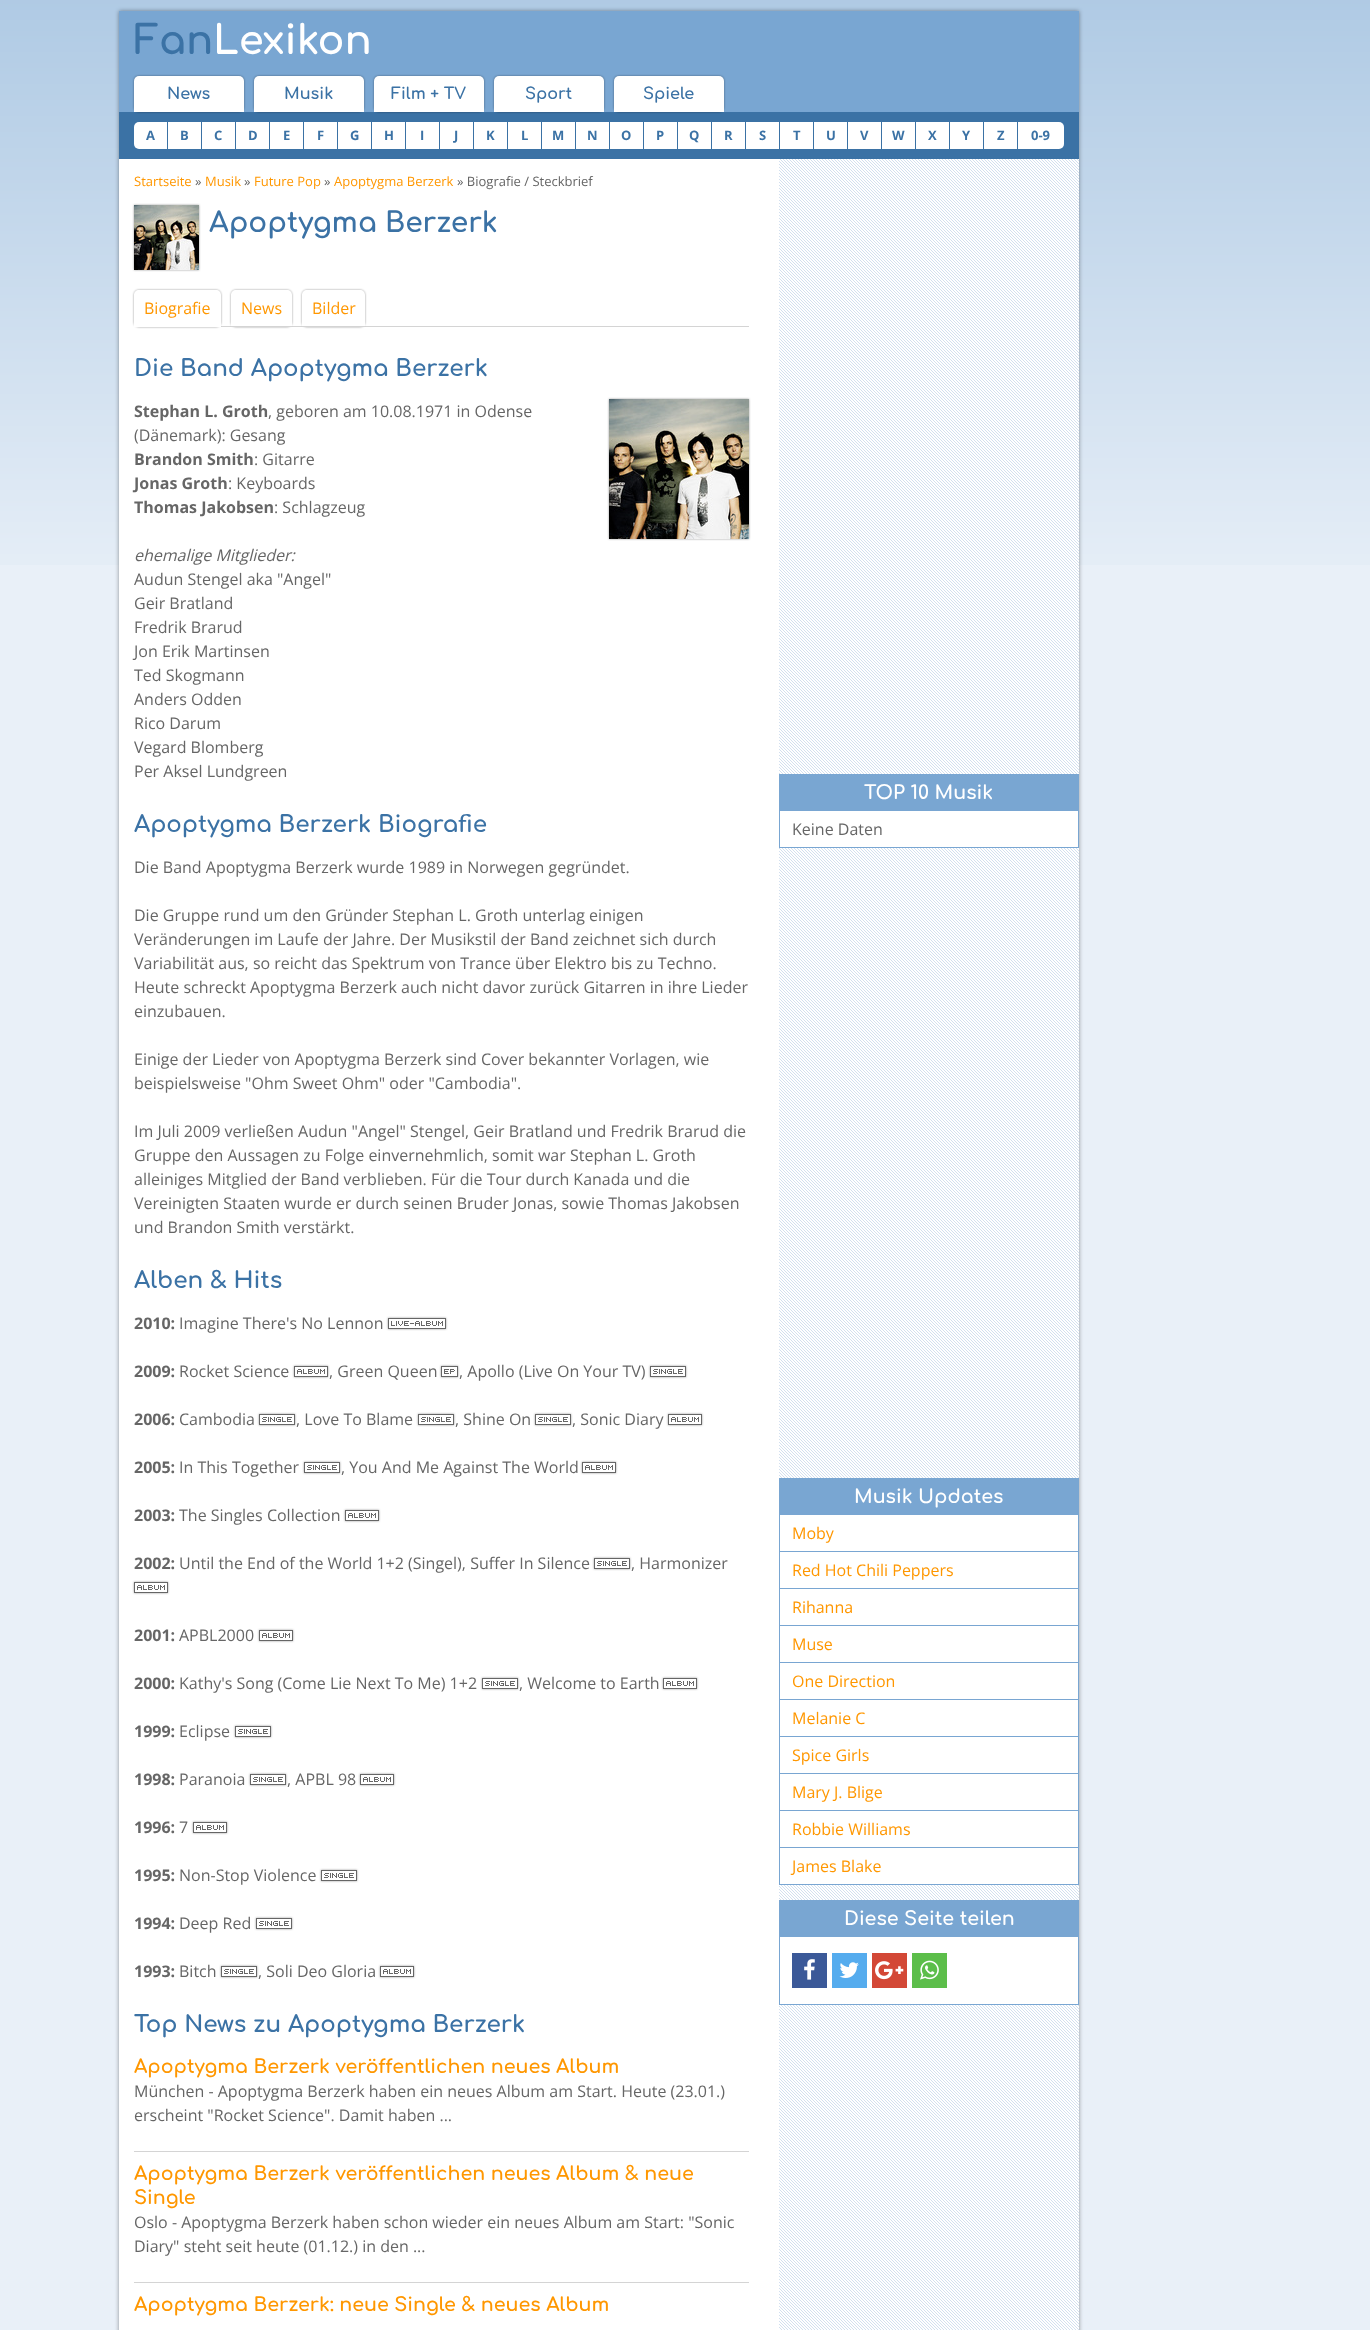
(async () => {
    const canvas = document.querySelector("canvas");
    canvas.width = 1370;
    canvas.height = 2330;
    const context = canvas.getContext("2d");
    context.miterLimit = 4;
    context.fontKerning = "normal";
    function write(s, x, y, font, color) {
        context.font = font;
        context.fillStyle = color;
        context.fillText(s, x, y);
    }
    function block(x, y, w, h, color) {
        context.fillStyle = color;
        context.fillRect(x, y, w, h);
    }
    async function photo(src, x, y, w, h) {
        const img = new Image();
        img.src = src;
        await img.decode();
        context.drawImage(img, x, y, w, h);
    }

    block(0, 0, 1370, 2330, "rgb(233, 240, 248)");
    await photo("media/1.png", 0, 0, 1370, 565);
    context.fillStyle = "rgba(0, 0, 0, 0.5)";
    context.filter = "blur(0.5px)";
    context.beginPath();
    context.rect(119, 11, 960, 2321);
    context.fill();
    context.filter = "none";
    context.fillStyle = "rgba(0, 0, 0, 0.4)";
    context.filter = "blur(2px)";
    context.beginPath();
    context.rect(119, 11, 960, 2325);
    context.fill();
    context.filter = "none";
    block(119, 159, 660, 2171, "rgb(255, 255, 255)");
    await photo("media/2.png", 779, 159, 300, 2171);
    block(119, 11, 960, 101, "rgb(121, 166, 210)");
    write("Fan", 134, 54, "bold 40px Comfortaa", "rgb(59, 114, 165)");
    write("Lexikon", 213, 54, "bold 40px Comfortaa", "rgb(255, 255, 255)");
    block(119, 112, 960, 47, "rgb(59, 114, 165)");
    context.fillStyle = "rgba(0, 0, 0, 0.4)";
    context.filter = "blur(1px)";
    context.beginPath();
    context.roundRect(134, 76, 110, 36, 5);
    context.fill();
    context.filter = "none";
    context.fillStyle = "rgb(255, 255, 255)";
    context.beginPath();
    context.roundRect(134, 76, 110, 36, [5, 5, 0, 0]);
    context.fill();
    write("News", 167, 99, "bold 16px Comfortaa", "rgb(59, 114, 165)");
    context.fillStyle = "rgba(0, 0, 0, 0.4)";
    context.filter = "blur(1px)";
    context.beginPath();
    context.roundRect(254, 76, 110, 36, 5);
    context.fill();
    context.filter = "none";
    context.fillStyle = "rgb(255, 255, 255)";
    context.beginPath();
    context.roundRect(254, 76, 110, 36, [5, 5, 0, 0]);
    context.fill();
    write("Musik", 284, 99, "bold 16px Comfortaa", "rgb(59, 114, 165)");
    context.fillStyle = "rgba(0, 0, 0, 0.4)";
    context.filter = "blur(1px)";
    context.beginPath();
    context.roundRect(374, 76, 110, 36, 5);
    context.fill();
    context.filter = "none";
    context.fillStyle = "rgb(255, 255, 255)";
    context.beginPath();
    context.roundRect(374, 76, 110, 36, [5, 5, 0, 0]);
    context.fill();
    write("Film + TV", 391, 99, "bold 16px Comfortaa", "rgb(59, 114, 165)");
    context.fillStyle = "rgba(0, 0, 0, 0.4)";
    context.filter = "blur(1px)";
    context.beginPath();
    context.roundRect(494, 76, 110, 36, 5);
    context.fill();
    context.filter = "none";
    context.fillStyle = "rgb(255, 255, 255)";
    context.beginPath();
    context.roundRect(494, 76, 110, 36, [5, 5, 0, 0]);
    context.fill();
    write("Sport", 525, 99, "bold 16px Comfortaa", "rgb(59, 114, 165)");
    context.fillStyle = "rgba(0, 0, 0, 0.4)";
    context.filter = "blur(1px)";
    context.beginPath();
    context.roundRect(614, 76, 110, 36, 5);
    context.fill();
    context.filter = "none";
    context.fillStyle = "rgb(255, 255, 255)";
    context.beginPath();
    context.roundRect(614, 76, 110, 36, [5, 5, 0, 0]);
    context.fill();
    write("Spiele", 643, 99, "bold 16px Comfortaa", "rgb(59, 114, 165)");
    context.fillStyle = "rgb(255, 255, 255)";
    context.beginPath();
    context.roundRect(134, 122, 33, 27, [5, 0, 0, 5]);
    context.fill();
    write("A", 146, 140, "bold 13px Open Sans", "rgb(59, 114, 165)");
    block(168, 122, 33, 27, "rgb(255, 255, 255)");
    write("B", 180, 140, "bold 13px Open Sans", "rgb(59, 114, 165)");
    block(202, 122, 33, 27, "rgb(255, 255, 255)");
    write("C", 214, 140, "bold 13px Open Sans", "rgb(59, 114, 165)");
    block(236, 122, 33, 27, "rgb(255, 255, 255)");
    write("D", 248, 140, "bold 13px Open Sans", "rgb(59, 114, 165)");
    block(270, 122, 33, 27, "rgb(255, 255, 255)");
    write("E", 283, 140, "bold 13px Open Sans", "rgb(59, 114, 165)");
    block(304, 122, 33, 27, "rgb(255, 255, 255)");
    write("F", 317, 140, "bold 13px Open Sans", "rgb(59, 114, 165)");
    block(338, 122, 33, 27, "rgb(255, 255, 255)");
    write("G", 350, 140, "bold 13px Open Sans", "rgb(59, 114, 165)");
    block(372, 122, 33, 27, "rgb(255, 255, 255)");
    write("H", 384, 140, "bold 13px Open Sans", "rgb(59, 114, 165)");
    block(406, 122, 33, 27, "rgb(255, 255, 255)");
    write("I", 420, 140, "bold 13px Open Sans", "rgb(59, 114, 165)");
    block(440, 122, 33, 27, "rgb(255, 255, 255)");
    write("J", 454, 140, "bold 13px Open Sans", "rgb(59, 114, 165)");
    block(474, 122, 33, 27, "rgb(255, 255, 255)");
    write("K", 486, 140, "bold 13px Open Sans", "rgb(59, 114, 165)");
    block(508, 122, 33, 27, "rgb(255, 255, 255)");
    write("L", 521, 140, "bold 13px Open Sans", "rgb(59, 114, 165)");
    block(542, 122, 33, 27, "rgb(255, 255, 255)");
    write("M", 552, 140, "bold 13px Open Sans", "rgb(59, 114, 165)");
    block(576, 122, 33, 27, "rgb(255, 255, 255)");
    write("N", 587, 140, "bold 13px Open Sans", "rgb(59, 114, 165)");
    block(610, 122, 33, 27, "rgb(255, 255, 255)");
    write("O", 621, 140, "bold 13px Open Sans", "rgb(59, 114, 165)");
    block(644, 122, 33, 27, "rgb(255, 255, 255)");
    write("P", 656, 140, "bold 13px Open Sans", "rgb(59, 114, 165)");
    block(678, 122, 33, 27, "rgb(255, 255, 255)");
    write("Q", 689, 140, "bold 13px Open Sans", "rgb(59, 114, 165)");
    block(712, 122, 33, 27, "rgb(255, 255, 255)");
    write("R", 724, 140, "bold 13px Open Sans", "rgb(59, 114, 165)");
    block(746, 122, 33, 27, "rgb(255, 255, 255)");
    write("S", 759, 140, "bold 13px Open Sans", "rgb(59, 114, 165)");
    block(780, 122, 33, 27, "rgb(255, 255, 255)");
    write("T", 793, 140, "bold 13px Open Sans", "rgb(59, 114, 165)");
    block(814, 122, 33, 27, "rgb(255, 255, 255)");
    write("U", 826, 140, "bold 13px Open Sans", "rgb(59, 114, 165)");
    block(848, 122, 33, 27, "rgb(255, 255, 255)");
    write("V", 860, 140, "bold 13px Open Sans", "rgb(59, 114, 165)");
    block(882, 122, 33, 27, "rgb(255, 255, 255)");
    write("W", 892, 140, "bold 13px Open Sans", "rgb(59, 114, 165)");
    block(916, 122, 33, 27, "rgb(255, 255, 255)");
    write("X", 928, 140, "bold 13px Open Sans", "rgb(59, 114, 165)");
    block(950, 122, 33, 27, "rgb(255, 255, 255)");
    write("Y", 962, 140, "bold 13px Open Sans", "rgb(59, 114, 165)");
    block(984, 122, 33, 27, "rgb(255, 255, 255)");
    write("Z", 997, 140, "bold 13px Open Sans", "rgb(59, 114, 165)");
    context.fillStyle = "rgb(255, 255, 255)";
    context.beginPath();
    context.roundRect(1018, 122, 46, 27, [0, 5, 5, 0]);
    context.fill();
    write("0-9", 1031, 140, "bold 13px Open Sans", "rgb(59, 114, 165)");
    write("Startseite", 134, 186, "13px Open Sans", "rgb(255, 151, 0)");
    write("»", 195, 186, "13px Open Sans", "rgb(102, 102, 102)");
    write("Musik", 205, 186, "13px Open Sans", "rgb(255, 151, 0)");
    write("»", 244, 186, "13px Open Sans", "rgb(102, 102, 102)");
    write("Future Pop", 254, 186, "13px Open Sans", "rgb(255, 151, 0)");
    write("»", 324, 186, "13px Open Sans", "rgb(102, 102, 102)");
    write("Apoptygma Berzerk", 334, 186, "13px Open Sans", "rgb(255, 151, 0)");
    write("» Biografie / Steckbrief", 457, 186, "13px Open Sans", "rgb(102, 102, 102)");
    context.fillStyle = "rgba(0, 0, 0, 0.4)";
    context.filter = "blur(1px)";
    context.beginPath();
    context.rect(134, 205, 65, 65);
    context.fill();
    context.filter = "none";
    await photo("media/3.png", 134, 205, 65, 65);
    write("Apoptygma Berzerk", 209, 232, "bold 28px Comfortaa", "rgb(59, 114, 165)");
    block(221, 326, 528, 1, "rgb(212, 212, 212)");
    context.save();
    context.beginPath();
    context.moveTo(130, 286);
    context.lineTo(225, 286);
    context.lineTo(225, 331);
    context.lineTo(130, 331);
    context.closePath();
    context.moveTo(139, 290);
    context.lineTo(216, 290);
    context.bezierCurveTo(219, 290, 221, 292, 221, 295);
    context.lineTo(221, 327);
    context.lineTo(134, 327);
    context.lineTo(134, 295);
    context.bezierCurveTo(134, 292, 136, 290, 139, 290);
    context.closePath();
    context.clip("evenodd");
    context.fillStyle = "rgba(0, 0, 0, 0.4)";
    context.filter = "blur(1px)";
    context.beginPath();
    context.roundRect(134, 290, 87, 37, 5);
    context.fill();
    context.filter = "none";
    context.restore();
    write("Biografie", 144, 314, "16px Open Sans", "rgb(255, 151, 0)");
    context.save();
    context.beginPath();
    context.moveTo(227, 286);
    context.lineTo(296, 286);
    context.lineTo(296, 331);
    context.lineTo(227, 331);
    context.closePath();
    context.moveTo(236, 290);
    context.lineTo(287, 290);
    context.bezierCurveTo(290, 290, 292, 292, 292, 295);
    context.lineTo(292, 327);
    context.lineTo(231, 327);
    context.lineTo(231, 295);
    context.bezierCurveTo(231, 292, 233, 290, 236, 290);
    context.closePath();
    context.clip("evenodd");
    context.fillStyle = "rgba(0, 0, 0, 0.4)";
    context.filter = "blur(1px)";
    context.beginPath();
    context.roundRect(231, 290, 61, 37, 5);
    context.fill();
    context.filter = "none";
    context.restore();
    write("News", 241, 314, "16px Open Sans", "rgb(255, 151, 0)");
    context.save();
    context.beginPath();
    context.moveTo(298, 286);
    context.lineTo(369, 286);
    context.lineTo(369, 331);
    context.lineTo(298, 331);
    context.closePath();
    context.moveTo(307, 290);
    context.lineTo(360, 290);
    context.bezierCurveTo(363, 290, 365, 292, 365, 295);
    context.lineTo(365, 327);
    context.lineTo(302, 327);
    context.lineTo(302, 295);
    context.bezierCurveTo(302, 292, 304, 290, 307, 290);
    context.closePath();
    context.clip("evenodd");
    context.fillStyle = "rgba(0, 0, 0, 0.4)";
    context.filter = "blur(1px)";
    context.beginPath();
    context.roundRect(302, 290, 63, 37, 5);
    context.fill();
    context.filter = "none";
    context.restore();
    write("Bilder", 312, 314, "16px Open Sans", "rgb(255, 151, 0)");
    write("Die Band Apoptygma Berzerk", 134, 376, "bold 23px Comfortaa", "rgb(59, 114, 165)");
    write("Stephan L. Groth", 134, 417, "bold 16px Open Sans", "rgb(102, 102, 102)");
    write(", geboren am 10.08.1971 in Odense", 268, 417, "16px Open Sans", "rgb(102, 102, 102)");
    write("(Dänemark): Gesang", 134, 441, "16px Open Sans", "rgb(102, 102, 102)");
    write("Brandon Smith", 134, 465, "bold 16px Open Sans", "rgb(102, 102, 102)");
    write(": Gitarre", 254, 465, "16px Open Sans", "rgb(102, 102, 102)");
    write("Jonas Groth", 134, 489, "bold 16px Open Sans", "rgb(102, 102, 102)");
    write(": Keyboards", 228, 489, "16px Open Sans", "rgb(102, 102, 102)");
    write("Thomas Jakobsen", 134, 513, "bold 16px Open Sans", "rgb(102, 102, 102)");
    write(": Schlagzeug", 274, 513, "16px Open Sans", "rgb(102, 102, 102)");
    context.fillStyle = "rgba(0, 0, 0, 0.4)";
    context.filter = "blur(1px)";
    context.beginPath();
    context.rect(609, 399, 140, 140);
    context.fill();
    context.filter = "none";
    await photo("media/4.png", 609, 399, 140, 140);
    write("ehemalige Mitglieder:", 134, 561, "italic 16px Open Sans", "rgb(102, 102, 102)");
    write("Audun Stengel aka \"Angel\"", 134, 585, "16px Open Sans", "rgb(102, 102, 102)");
    write("Geir Bratland", 134, 609, "16px Open Sans", "rgb(102, 102, 102)");
    write("Fredrik Brarud", 134, 633, "16px Open Sans", "rgb(102, 102, 102)");
    write("Jon Erik Martinsen", 134, 657, "16px Open Sans", "rgb(102, 102, 102)");
    write("Ted Skogmann", 134, 681, "16px Open Sans", "rgb(102, 102, 102)");
    write("Anders Odden", 134, 705, "16px Open Sans", "rgb(102, 102, 102)");
    write("Rico Darum", 134, 729, "16px Open Sans", "rgb(102, 102, 102)");
    write("Vegard Blomberg", 134, 753, "16px Open Sans", "rgb(102, 102, 102)");
    write("Per Aksel Lundgreen", 134, 777, "16px Open Sans", "rgb(102, 102, 102)");
    write("Apoptygma Berzerk Biografie", 134, 832, "bold 23px Comfortaa", "rgb(59, 114, 165)");
    write("Die Band Apoptygma Berzerk wurde 1989 in Norwegen gegründet.", 134, 873, "16px Open Sans", "rgb(102, 102, 102)");
    write("Die Gruppe rund um den Gründer Stephan L. Groth unterlag einigen", 134, 921, "16px Open Sans", "rgb(102, 102, 102)");
    write("Veränderungen im Laufe der Jahre. Der Musikstil der Band zeichnet sich durch", 134, 945, "16px Open Sans", "rgb(102, 102, 102)");
    write("Variabilität aus, so reicht das Spektrum von Trance über Elektro bis zu Techno.", 134, 969, "16px Open Sans", "rgb(102, 102, 102)");
    write("Heute schreckt Apoptygma Berzerk auch nicht davor zurück Gitarren in ihre Lieder", 134, 993, "16px Open Sans", "rgb(102, 102, 102)");
    write("einzubauen.", 134, 1017, "16px Open Sans", "rgb(102, 102, 102)");
    write("Einige der Lieder von Apoptygma Berzerk sind Cover bekannter Vorlagen, wie", 134, 1065, "16px Open Sans", "rgb(102, 102, 102)");
    write("beispielsweise \"Ohm Sweet Ohm\" oder \"Cambodia\".", 134, 1089, "16px Open Sans", "rgb(102, 102, 102)");
    write("Im Juli 2009 verließen Audun \"Angel\" Stengel, Geir Bratland und Fredrik Brarud die", 134, 1137, "16px Open Sans", "rgb(102, 102, 102)");
    write("Gruppe den Aussagen zu Folge einvernehmlich, somit war Stephan L. Groth", 134, 1161, "16px Open Sans", "rgb(102, 102, 102)");
    write("alleiniges Mitglied der Band verblieben. Für die Tour durch Kanada und die", 134, 1185, "16px Open Sans", "rgb(102, 102, 102)");
    write("Vereinigten Staaten wurde er durch seinen Bruder Jonas, sowie Thomas Jakobsen", 134, 1209, "16px Open Sans", "rgb(102, 102, 102)");
    write("und Brandon Smith verstärkt.", 134, 1233, "16px Open Sans", "rgb(102, 102, 102)");
    write("Alben & Hits", 134, 1288, "bold 23px Comfortaa", "rgb(59, 114, 165)");
    write("2010:", 134, 1329, "bold 16px Open Sans", "rgb(102, 102, 102)");
    write("Imagine There's No Lennon", 179, 1329, "16px Open Sans", "rgb(102, 102, 102)");
    context.fillStyle = "rgba(0, 0, 0, 0.4)";
    context.filter = "blur(1px)";
    context.beginPath();
    context.rect(388, 1318, 58, 11);
    context.fill();
    context.filter = "none";
    await photo("media/5.png", 388, 1318, 58, 11);
    write("2009:", 134, 1377, "bold 16px Open Sans", "rgb(102, 102, 102)");
    write("Rocket Science", 179, 1377, "16px Open Sans", "rgb(102, 102, 102)");
    context.fillStyle = "rgba(0, 0, 0, 0.4)";
    context.filter = "blur(1px)";
    context.beginPath();
    context.rect(294, 1366, 34, 11);
    context.fill();
    context.filter = "none";
    write(", Green Queen", 329, 1377, "16px Open Sans", "rgb(102, 102, 102)");
    context.fillStyle = "rgba(0, 0, 0, 0.4)";
    context.filter = "blur(1px)";
    context.beginPath();
    context.rect(441, 1366, 17, 11);
    context.fill();
    context.filter = "none";
    write(", Apollo (Live On Your TV)", 459, 1377, "16px Open Sans", "rgb(102, 102, 102)");
    context.fillStyle = "rgba(0, 0, 0, 0.4)";
    context.filter = "blur(1px)";
    context.beginPath();
    context.rect(650, 1366, 36, 11);
    context.fill();
    context.filter = "none";
    await photo("media/6.png", 294, 1366, 34, 11);
    await photo("media/7.png", 441, 1366, 17, 11);
    await photo("media/8.png", 650, 1366, 36, 11);
    write("2006:", 134, 1425, "bold 16px Open Sans", "rgb(102, 102, 102)");
    write("Cambodia", 179, 1425, "16px Open Sans", "rgb(102, 102, 102)");
    context.fillStyle = "rgba(0, 0, 0, 0.4)";
    context.filter = "blur(1px)";
    context.beginPath();
    context.rect(259, 1414, 36, 11);
    context.fill();
    context.filter = "none";
    write(", Love To Blame", 296, 1425, "16px Open Sans", "rgb(102, 102, 102)");
    context.fillStyle = "rgba(0, 0, 0, 0.4)";
    context.filter = "blur(1px)";
    context.beginPath();
    context.rect(418, 1414, 36, 11);
    context.fill();
    context.filter = "none";
    write(", Shine On", 455, 1425, "16px Open Sans", "rgb(102, 102, 102)");
    context.fillStyle = "rgba(0, 0, 0, 0.4)";
    context.filter = "blur(1px)";
    context.beginPath();
    context.rect(535, 1414, 36, 11);
    context.fill();
    context.filter = "none";
    write(", Sonic Diary", 572, 1425, "16px Open Sans", "rgb(102, 102, 102)");
    context.fillStyle = "rgba(0, 0, 0, 0.4)";
    context.filter = "blur(1px)";
    context.beginPath();
    context.rect(668, 1414, 34, 11);
    context.fill();
    context.filter = "none";
    await photo("media/8.png", 259, 1414, 36, 11);
    await photo("media/8.png", 418, 1414, 36, 11);
    await photo("media/8.png", 535, 1414, 36, 11);
    await photo("media/6.png", 668, 1414, 34, 11);
    write("2005:", 134, 1473, "bold 16px Open Sans", "rgb(102, 102, 102)");
    write("In This Together", 179, 1473, "16px Open Sans", "rgb(102, 102, 102)");
    context.fillStyle = "rgba(0, 0, 0, 0.4)";
    context.filter = "blur(1px)";
    context.beginPath();
    context.rect(304, 1462, 36, 11);
    context.fill();
    context.filter = "none";
    write(", You And Me Against The World", 341, 1473, "16px Open Sans", "rgb(102, 102, 102)");
    context.fillStyle = "rgba(0, 0, 0, 0.4)";
    context.filter = "blur(1px)";
    context.beginPath();
    context.rect(582, 1462, 34, 11);
    context.fill();
    context.filter = "none";
    await photo("media/8.png", 304, 1462, 36, 11);
    await photo("media/6.png", 582, 1462, 34, 11);
    write("2003:", 134, 1521, "bold 16px Open Sans", "rgb(102, 102, 102)");
    write("The Singles Collection", 179, 1521, "16px Open Sans", "rgb(102, 102, 102)");
    context.fillStyle = "rgba(0, 0, 0, 0.4)";
    context.filter = "blur(1px)";
    context.beginPath();
    context.rect(345, 1510, 34, 11);
    context.fill();
    context.filter = "none";
    await photo("media/6.png", 345, 1510, 34, 11);
    write("2002:", 134, 1569, "bold 16px Open Sans", "rgb(102, 102, 102)");
    write("Until the End of the World 1+2 (Singel), Suffer In Silence", 179, 1569, "16px Open Sans", "rgb(102, 102, 102)");
    context.fillStyle = "rgba(0, 0, 0, 0.4)";
    context.filter = "blur(1px)";
    context.beginPath();
    context.rect(594, 1558, 36, 11);
    context.fill();
    context.filter = "none";
    write(", Harmonizer", 631, 1569, "16px Open Sans", "rgb(102, 102, 102)");
    await photo("media/8.png", 594, 1558, 36, 11);
    context.fillStyle = "rgba(0, 0, 0, 0.4)";
    context.filter = "blur(1px)";
    context.beginPath();
    context.rect(134, 1582, 34, 11);
    context.fill();
    context.filter = "none";
    await photo("media/6.png", 134, 1582, 34, 11);
    write("2001:", 134, 1641, "bold 16px Open Sans", "rgb(102, 102, 102)");
    write("APBL2000", 179, 1641, "16px Open Sans", "rgb(102, 102, 102)");
    context.fillStyle = "rgba(0, 0, 0, 0.4)";
    context.filter = "blur(1px)";
    context.beginPath();
    context.rect(259, 1630, 34, 11);
    context.fill();
    context.filter = "none";
    await photo("media/6.png", 259, 1630, 34, 11);
    write("2000:", 134, 1689, "bold 16px Open Sans", "rgb(102, 102, 102)");
    write("Kathy's Song (Come Lie Next To Me) 1+2", 179, 1689, "16px Open Sans", "rgb(102, 102, 102)");
    context.fillStyle = "rgba(0, 0, 0, 0.4)";
    context.filter = "blur(1px)";
    context.beginPath();
    context.rect(482, 1678, 36, 11);
    context.fill();
    context.filter = "none";
    write(", Welcome to Earth", 519, 1689, "16px Open Sans", "rgb(102, 102, 102)");
    context.fillStyle = "rgba(0, 0, 0, 0.4)";
    context.filter = "blur(1px)";
    context.beginPath();
    context.rect(663, 1678, 34, 11);
    context.fill();
    context.filter = "none";
    await photo("media/8.png", 482, 1678, 36, 11);
    await photo("media/6.png", 663, 1678, 34, 11);
    write("1999:", 134, 1737, "bold 16px Open Sans", "rgb(102, 102, 102)");
    write("Eclipse", 179, 1737, "16px Open Sans", "rgb(102, 102, 102)");
    context.fillStyle = "rgba(0, 0, 0, 0.4)";
    context.filter = "blur(1px)";
    context.beginPath();
    context.rect(235, 1726, 36, 11);
    context.fill();
    context.filter = "none";
    await photo("media/8.png", 235, 1726, 36, 11);
    write("1998:", 134, 1785, "bold 16px Open Sans", "rgb(102, 102, 102)");
    write("Paranoia", 179, 1785, "16px Open Sans", "rgb(102, 102, 102)");
    context.fillStyle = "rgba(0, 0, 0, 0.4)";
    context.filter = "blur(1px)";
    context.beginPath();
    context.rect(250, 1774, 36, 11);
    context.fill();
    context.filter = "none";
    write(", APBL 98", 287, 1785, "16px Open Sans", "rgb(102, 102, 102)");
    context.fillStyle = "rgba(0, 0, 0, 0.4)";
    context.filter = "blur(1px)";
    context.beginPath();
    context.rect(360, 1774, 34, 11);
    context.fill();
    context.filter = "none";
    await photo("media/8.png", 250, 1774, 36, 11);
    await photo("media/6.png", 360, 1774, 34, 11);
    write("1996:", 134, 1833, "bold 16px Open Sans", "rgb(102, 102, 102)");
    write("7", 179, 1833, "16px Open Sans", "rgb(102, 102, 102)");
    context.fillStyle = "rgba(0, 0, 0, 0.4)";
    context.filter = "blur(1px)";
    context.beginPath();
    context.rect(193, 1822, 34, 11);
    context.fill();
    context.filter = "none";
    await photo("media/6.png", 193, 1822, 34, 11);
    write("1995:", 134, 1881, "bold 16px Open Sans", "rgb(102, 102, 102)");
    write("Non-Stop Violence", 179, 1881, "16px Open Sans", "rgb(102, 102, 102)");
    context.fillStyle = "rgba(0, 0, 0, 0.4)";
    context.filter = "blur(1px)";
    context.beginPath();
    context.rect(321, 1870, 36, 11);
    context.fill();
    context.filter = "none";
    await photo("media/8.png", 321, 1870, 36, 11);
    write("1994:", 134, 1929, "bold 16px Open Sans", "rgb(102, 102, 102)");
    write("Deep Red", 179, 1929, "16px Open Sans", "rgb(102, 102, 102)");
    context.fillStyle = "rgba(0, 0, 0, 0.4)";
    context.filter = "blur(1px)";
    context.beginPath();
    context.rect(256, 1918, 36, 11);
    context.fill();
    context.filter = "none";
    await photo("media/8.png", 256, 1918, 36, 11);
    write("1993:", 134, 1977, "bold 16px Open Sans", "rgb(102, 102, 102)");
    write("Bitch", 179, 1977, "16px Open Sans", "rgb(102, 102, 102)");
    context.fillStyle = "rgba(0, 0, 0, 0.4)";
    context.filter = "blur(1px)";
    context.beginPath();
    context.rect(221, 1966, 36, 11);
    context.fill();
    context.filter = "none";
    write(", Soli Deo Gloria", 258, 1977, "16px Open Sans", "rgb(102, 102, 102)");
    context.fillStyle = "rgba(0, 0, 0, 0.4)";
    context.filter = "blur(1px)";
    context.beginPath();
    context.rect(380, 1966, 34, 11);
    context.fill();
    context.filter = "none";
    await photo("media/8.png", 221, 1966, 36, 11);
    await photo("media/6.png", 380, 1966, 34, 11);
    write("Top News zu Apoptygma Berzerk", 134, 2032, "bold 23px Comfortaa", "rgb(59, 114, 165)");
    write("Apoptygma Berzerk veröffentlichen neues Album", 134, 2073, "bold 19px Comfortaa", "rgb(255, 151, 0)");
    write("München - Apoptygma Berzerk haben ein neues Album am Start. Heute (23.01.)", 134, 2097, "16px Open Sans", "rgb(102, 102, 102)");
    write("erscheint \"Rocket Science\". Damit haben ...", 134, 2121, "16px Open Sans", "rgb(102, 102, 102)");
    block(134, 2151, 615, 1, "rgb(212, 212, 212)");
    write("Apoptygma Berzerk veröffentlichen neues Album & neue", 134, 2180, "bold 19px Comfortaa", "rgb(255, 151, 0)");
    write("Single", 134, 2204, "bold 19px Comfortaa", "rgb(255, 151, 0)");
    write("Oslo - Apoptygma Berzerk haben schon wieder ein neues Album am Start: \"Sonic", 134, 2228, "16px Open Sans", "rgb(102, 102, 102)");
    write("Diary\" steht seit heute (01.12.) in den ...", 134, 2252, "16px Open Sans", "rgb(102, 102, 102)");
    block(134, 2282, 615, 1, "rgb(212, 212, 212)");
    write("Apoptygma Berzerk: neue Single & neues Album", 134, 2311, "bold 19px Comfortaa", "rgb(255, 151, 0)");
    block(780, 811, 298, 36, "rgb(255, 255, 255)");
    context.strokeStyle = "rgb(121, 166, 210)";
    context.strokeRect(779.5, 774.5, 299, 73);
    block(780, 775, 298, 36, "rgb(121, 166, 210)");
    write("TOP 10 Musik", 864, 799, "bold 19px Comfortaa", "rgb(255, 255, 255)");
    write("Keine Daten", 792, 835, "16px Open Sans", "rgb(102, 102, 102)");
    block(780, 1515, 298, 369, "rgb(255, 255, 255)");
    context.strokeRect(779.5, 1478.5, 299, 406);
    block(780, 1479, 298, 36, "rgb(121, 166, 210)");
    write("Musik Updates", 854, 1503, "bold 19px Comfortaa", "rgb(255, 255, 255)");
    write("Moby", 792, 1539, "16px Open Sans", "rgb(255, 151, 0)");
    block(780, 1551, 298, 1, "rgb(121, 166, 210)");
    write("Red Hot Chili Peppers", 792, 1576, "16px Open Sans", "rgb(255, 151, 0)");
    block(780, 1588, 298, 1, "rgb(121, 166, 210)");
    write("Rihanna", 792, 1613, "16px Open Sans", "rgb(255, 151, 0)");
    block(780, 1625, 298, 1, "rgb(121, 166, 210)");
    write("Muse", 792, 1650, "16px Open Sans", "rgb(255, 151, 0)");
    block(780, 1662, 298, 1, "rgb(121, 166, 210)");
    write("One Direction", 792, 1687, "16px Open Sans", "rgb(255, 151, 0)");
    block(780, 1699, 298, 1, "rgb(121, 166, 210)");
    write("Melanie C", 792, 1724, "16px Open Sans", "rgb(255, 151, 0)");
    block(780, 1736, 298, 1, "rgb(121, 166, 210)");
    write("Spice Girls", 792, 1761, "16px Open Sans", "rgb(255, 151, 0)");
    block(780, 1773, 298, 1, "rgb(121, 166, 210)");
    write("Mary J. Blige", 792, 1798, "16px Open Sans", "rgb(255, 151, 0)");
    block(780, 1810, 298, 1, "rgb(121, 166, 210)");
    write("Robbie Williams", 792, 1835, "16px Open Sans", "rgb(255, 151, 0)");
    block(780, 1847, 298, 1, "rgb(121, 166, 210)");
    write("James Blake", 792, 1872, "16px Open Sans", "rgb(255, 151, 0)");
    block(780, 1937, 298, 67, "rgb(255, 255, 255)");
    context.strokeRect(779.5, 1900.5, 299, 104);
    block(780, 1901, 298, 36, "rgb(121, 166, 210)");
    write("Diese Seite teilen", 844, 1925, "bold 19px Comfortaa", "rgb(255, 255, 255)");
    block(792, 1953, 35, 35, "rgb(59, 89, 152)");
    await photo("media/9.png", 804, 1959, 11, 21);
    block(832, 1953, 35, 35, "rgb(85, 172, 238)");
    await photo("media/10.png", 839, 1962, 20, 16);
    block(872, 1953, 35, 35, "rgb(211, 72, 54)");
    await photo("media/11.png", 875, 1961, 29, 19);
    block(912, 1953, 35, 35, "rgb(92, 190, 74)");
    await photo("media/12.png", 920, 1960, 19, 20);
})();
